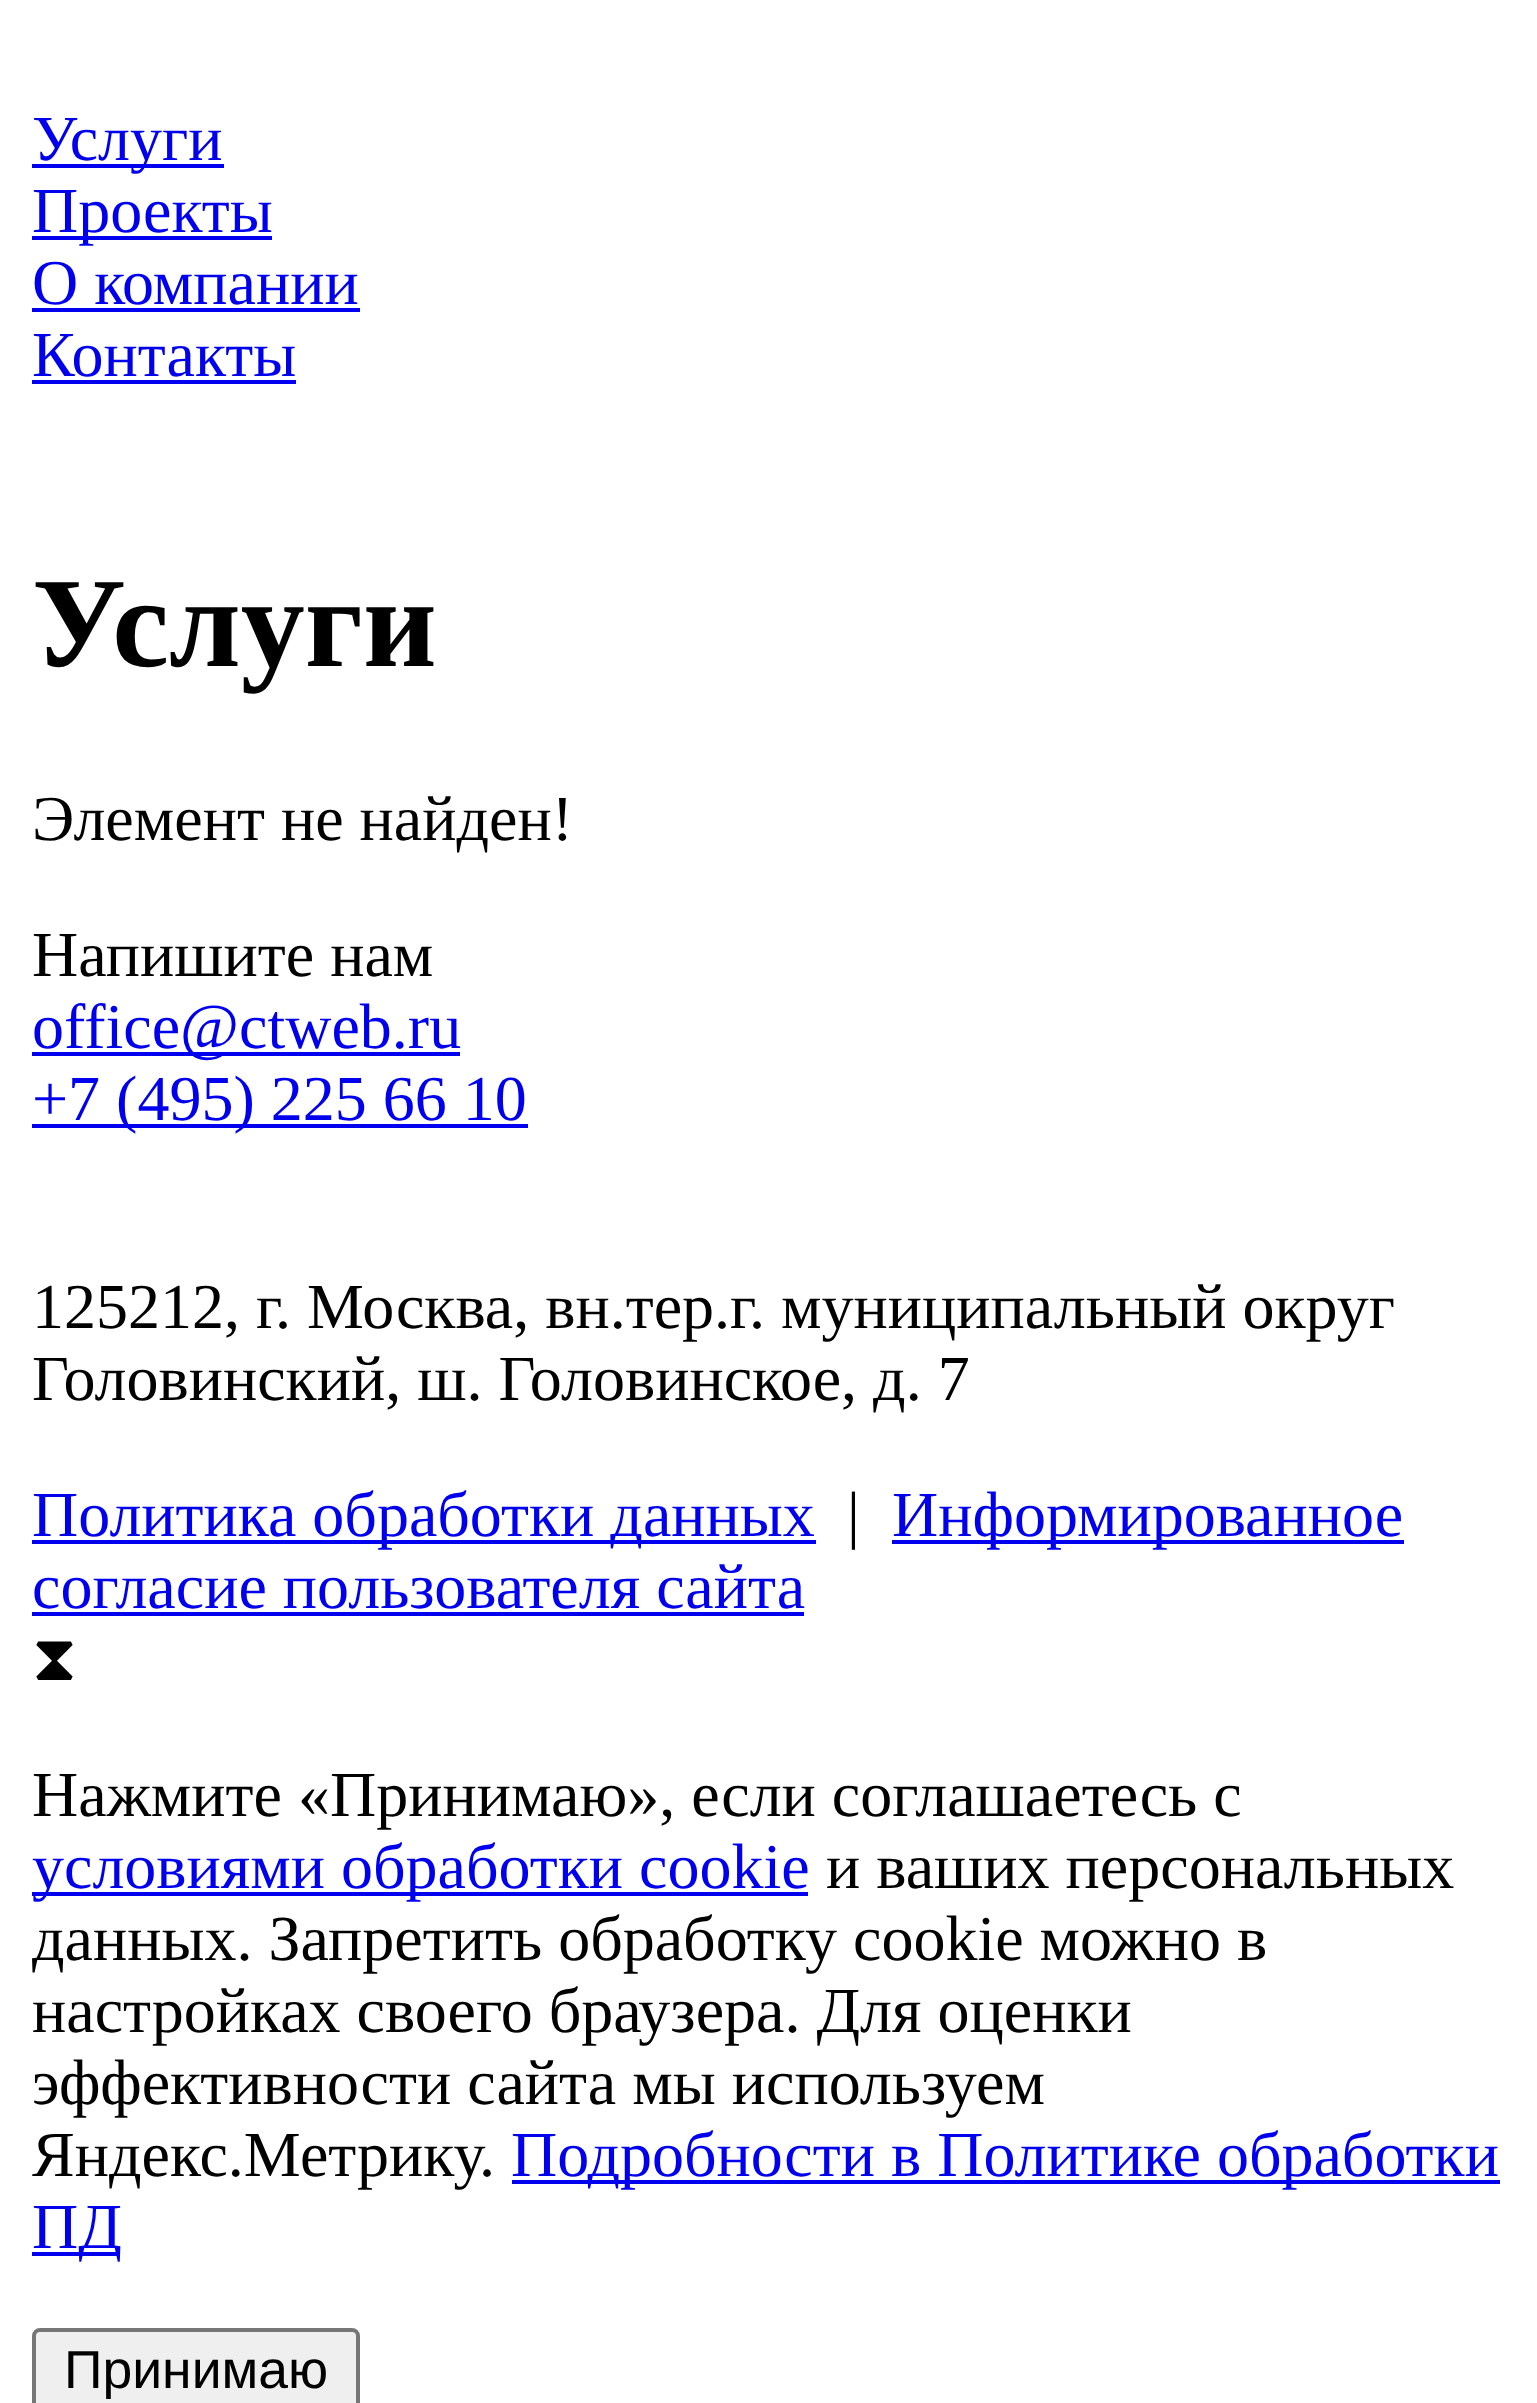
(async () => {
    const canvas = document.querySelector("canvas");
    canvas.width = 1537;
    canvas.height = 2403;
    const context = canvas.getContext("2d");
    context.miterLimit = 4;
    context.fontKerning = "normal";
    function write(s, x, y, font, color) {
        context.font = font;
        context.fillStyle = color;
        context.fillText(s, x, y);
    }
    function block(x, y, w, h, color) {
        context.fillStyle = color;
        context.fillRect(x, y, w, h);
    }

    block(0, 0, 1537, 2403, "rgb(255, 255, 255)");
    block(32, 164, 192, 4, "rgb(0, 0, 238)");
    write("Услуги", 32, 160, "64px Liberation Serif", "rgb(0, 0, 238)");
    block(32, 236, 240, 4, "rgb(0, 0, 238)");
    write("Проекты", 32, 232, "64px Liberation Serif", "rgb(0, 0, 238)");
    write("О компании", 32, 304, "64px Liberation Serif", "rgb(0, 0, 238)");
    block(32, 308, 328, 4, "rgb(0, 0, 238)");
    write("Контакты", 32, 376, "64px Liberation Serif", "rgb(0, 0, 238)");
    block(32, 380, 264, 4, "rgb(0, 0, 238)");
    write("Услуги", 32, 666, "bold 128px Liberation Serif", "rgb(0, 0, 0)");
    write("Элемент не найден!", 32, 840, "64px Liberation Serif", "rgb(0, 0, 0)");
    write("Напишите нам", 32, 976, "64px Liberation Serif", "rgb(0, 0, 0)");
    block(32, 1052, 428, 4, "rgb(0, 0, 238)");
    write("office@ctweb.ru", 32, 1048, "64px Liberation Serif", "rgb(0, 0, 238)");
    block(32, 1124, 496, 4, "rgb(0, 0, 238)");
    write("+7 (495) 225 66 10", 32, 1120, "64px Liberation Serif", "rgb(0, 0, 238)");
    write("125212, г. Москва, вн.тер.г. муниципальный округ", 32, 1328, "64px Liberation Serif", "rgb(0, 0, 0)");
    write("Головинский, ш. Головинское, д. 7", 32, 1400, "64px Liberation Serif", "rgb(0, 0, 0)");
    block(32, 1540, 784, 4, "rgb(0, 0, 238)");
    write("Политика обработки данных", 32, 1536, "64px Liberation Serif", "rgb(0, 0, 238)");
    write("|", 847, 1536, "64px Liberation Serif", "rgb(0, 0, 0)");
    block(892, 1540, 512, 4, "rgb(0, 0, 238)");
    write("Информированное", 892, 1536, "64px Liberation Serif", "rgb(0, 0, 238)");
    write("согласие пользователя сайта", 32, 1608, "64px Liberation Serif", "rgb(0, 0, 238)");
    block(32, 1612, 772, 4, "rgb(0, 0, 238)");
    write("⧗", 32, 1680, "64px FreeSerif", "rgb(0, 0, 0)");
    write("Нажмите «Принимаю», если соглашаетесь с", 32, 1816, "64px Liberation Serif", "rgb(0, 0, 0)");
    block(32, 1892, 776, 4, "rgb(0, 0, 238)");
    write("условиями обработки cookie", 32, 1888, "64px Liberation Serif", "rgb(0, 0, 238)");
    write("и ваших персональных", 826, 1888, "64px Liberation Serif", "rgb(0, 0, 0)");
    write("данных. Запретить обработку cookie можно в", 32, 1960, "64px Liberation Serif", "rgb(0, 0, 0)");
    write("настройках своего браузера. Для оценки", 32, 2032, "64px Liberation Serif", "rgb(0, 0, 0)");
    write("эффективности сайта мы используем", 32, 2104, "64px Liberation Serif", "rgb(0, 0, 0)");
    write("Яндекс.Метрику.", 32, 2176, "64px Liberation Serif", "rgb(0, 0, 0)");
    block(512, 2180, 988, 4, "rgb(0, 0, 238)");
    write("Подробности в Политике обработки", 511, 2176, "64px Liberation Serif", "rgb(0, 0, 238)");
    block(32, 2252, 88, 4, "rgb(0, 0, 238)");
    write("ПД", 32, 2248, "64px Liberation Serif", "rgb(0, 0, 238)");
    context.fillStyle = "rgb(239, 239, 239)";
    context.beginPath();
    context.roundRect(34, 2330, 324, 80, 6);
    context.fill();
    context.strokeStyle = "rgb(118, 118, 118)";
    context.lineWidth = 4;
    context.stroke();
    write("Принимаю", 64, 2388, "53.5px Liberation Sans", "rgb(0, 0, 0)");
})();
